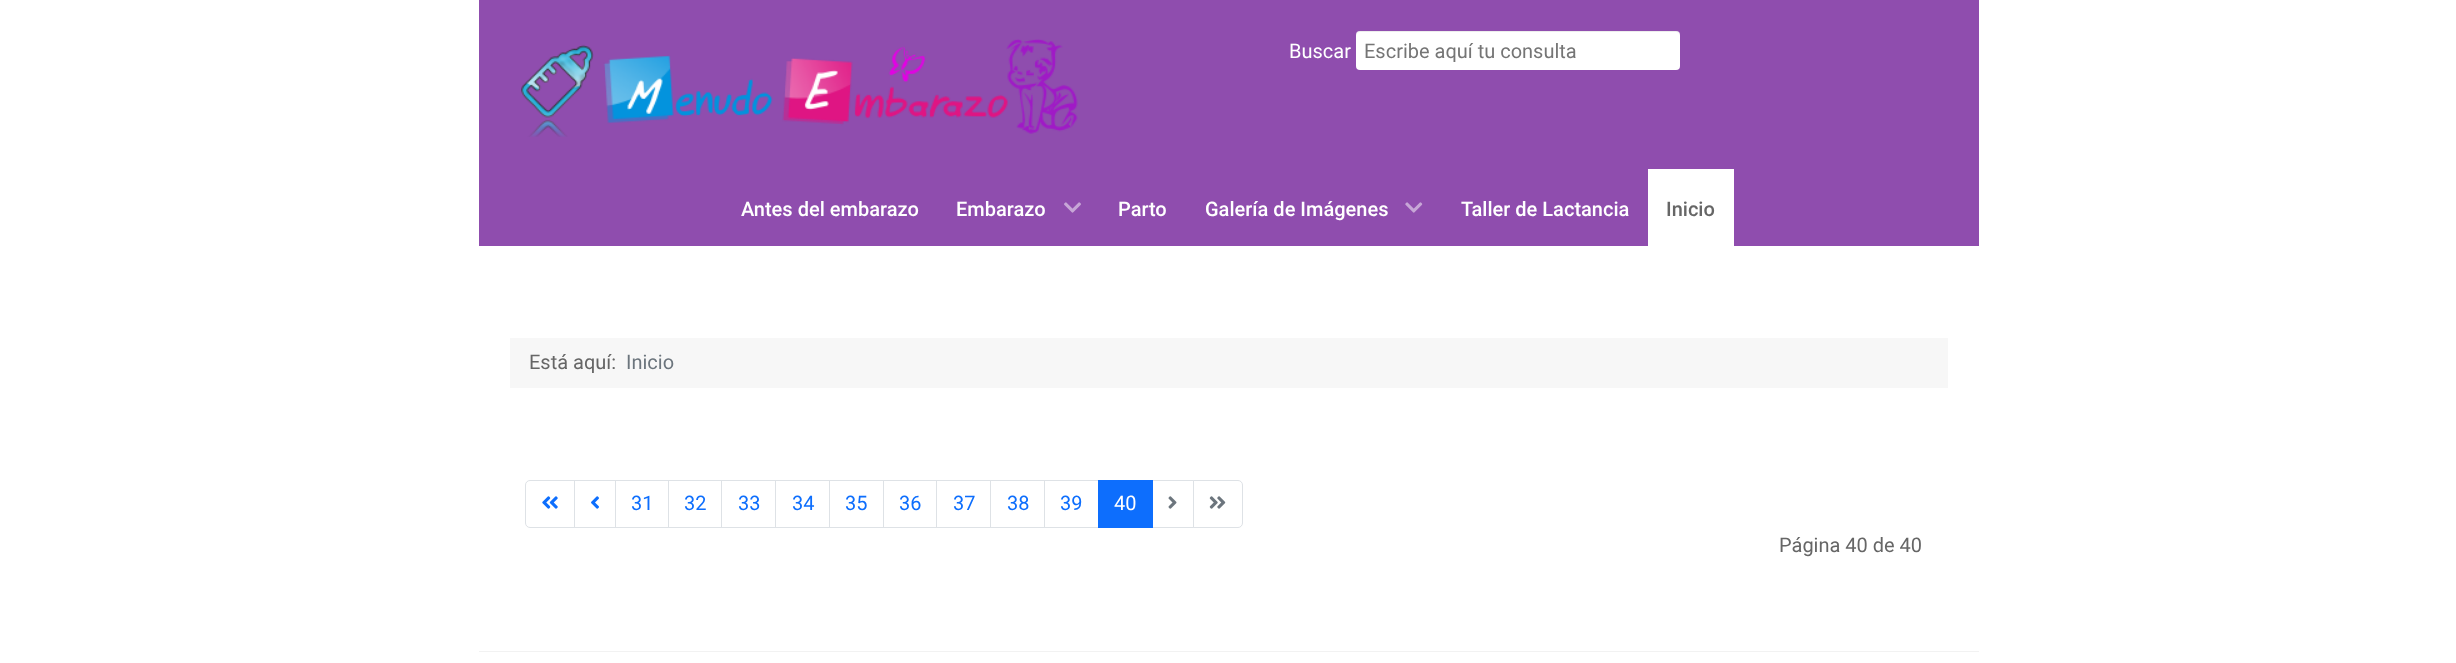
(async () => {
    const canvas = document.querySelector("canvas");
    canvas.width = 2456;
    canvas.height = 663;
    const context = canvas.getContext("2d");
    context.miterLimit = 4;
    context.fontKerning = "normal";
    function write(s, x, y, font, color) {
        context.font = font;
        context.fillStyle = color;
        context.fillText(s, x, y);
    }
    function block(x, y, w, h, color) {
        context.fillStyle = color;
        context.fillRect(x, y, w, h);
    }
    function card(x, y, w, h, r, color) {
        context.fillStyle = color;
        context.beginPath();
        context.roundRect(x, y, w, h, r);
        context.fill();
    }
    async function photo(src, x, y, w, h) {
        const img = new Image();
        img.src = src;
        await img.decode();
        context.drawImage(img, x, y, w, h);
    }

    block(0, 0, 2456, 663, "rgb(255, 255, 255)");
    block(479, 0, 1500, 246, "rgb(143, 77, 174)");
    await photo("media/1.png", 521, 39, 557, 98);
    write("Buscar", 1289, 58, "20px Roboto", "rgb(255, 255, 255)");
    card(1356, 31, 324, 39, 4, "rgb(255, 255, 255)");
    context.fillStyle = "rgba(0, 0, 0, 0.07)";
    context.beginPath();
    context.moveTo(1360, 32);
    context.lineTo(1676, 32);
    context.bezierCurveTo(1678, 32, 1680, 34, 1680, 36);
    context.lineTo(1680, 35);
    context.bezierCurveTo(1680, 33, 1678, 31, 1676, 31);
    context.lineTo(1360, 31);
    context.bezierCurveTo(1358, 31, 1356, 33, 1356, 35);
    context.lineTo(1356, 36);
    context.bezierCurveTo(1356, 34, 1358, 32, 1360, 32);
    context.closePath();
    context.fill();
    write("Escribe aquí tu consulta", 1364, 58, "20px Roboto", "rgb(117, 117, 117)");
    write("Antes del embarazo", 741, 216, "500 20px Roboto", "rgb(255, 255, 255)");
    write("Embarazo", 956, 216, "500 20px Roboto", "rgb(255, 255, 255)");
    await photo("media/2.png", 1064, 202, 17, 11);
    write("Parto", 1118, 216, "500 20px Roboto", "rgb(255, 255, 255)");
    write("Galería de Imágenes", 1205, 216, "500 20px Roboto", "rgb(255, 255, 255)");
    await photo("media/3.png", 1405, 202, 18, 11);
    write("Taller de Lactancia", 1461, 216, "500 20px Roboto", "rgb(255, 255, 255)");
    block(1648, 169, 86, 77, "rgb(255, 255, 255)");
    write("Inicio", 1666, 216, "500 20px Roboto", "rgb(102, 102, 102)");
    block(510, 338, 1438, 50, "rgb(247, 247, 247)");
    write("Está aquí:", 529, 369, "20px Roboto", "rgb(102, 102, 102)");
    write("Inicio", 626, 369, "20px Roboto", "rgb(108, 117, 125)");
    context.beginPath();
    context.roundRect(525.5, 480.5, 49, 47, [4.5, 0, 0, 4.5]);
    context.strokeStyle = "rgb(222, 226, 230)";
    context.stroke();
    await photo("media/4.png", 542, 496, 16, 13);
    context.strokeRect(574.5, 480.5, 41, 47);
    await photo("media/5.png", 591, 496, 8, 13);
    context.strokeRect(615.5, 480.5, 53, 47);
    write("31", 631, 510, "20px Roboto", "rgb(13, 110, 253)");
    context.strokeRect(668.5, 480.5, 54, 47);
    write("32", 684, 510, "20px Roboto", "rgb(13, 110, 253)");
    block(722, 481, 1, 46, "rgb(255, 255, 255)");
    context.strokeRect(721.5, 480.5, 54, 47);
    write("33", 738, 510, "20px Roboto", "rgb(13, 110, 253)");
    context.strokeRect(775.5, 480.5, 54, 47);
    write("34", 792, 510, "20px Roboto", "rgb(13, 110, 253)");
    context.strokeRect(829.5, 480.5, 54, 47);
    write("35", 845, 510, "20px Roboto", "rgb(13, 110, 253)");
    context.strokeRect(883.5, 480.5, 54, 47);
    write("36", 899, 510, "20px Roboto", "rgb(13, 110, 253)");
    block(937, 481, 1, 46, "rgb(255, 255, 255)");
    context.strokeRect(936.5, 480.5, 54, 47);
    write("37", 953, 510, "20px Roboto", "rgb(13, 110, 253)");
    context.strokeRect(990.5, 480.5, 54, 47);
    write("38", 1007, 510, "20px Roboto", "rgb(13, 110, 253)");
    context.strokeRect(1044.5, 480.5, 54, 47);
    write("39", 1060, 510, "20px Roboto", "rgb(13, 110, 253)");
    context.strokeRect(1151.5, 480.5, 42, 47);
    block(1098, 480, 55, 48, "rgb(13, 110, 253)");
    write("40", 1114, 510, "20px Roboto", "rgb(255, 255, 255)");
    await photo("media/6.png", 1168, 496, 9, 13);
    context.beginPath();
    context.roundRect(1193.5, 480.5, 49, 47, [0, 4.5, 4.5, 0]);
    context.fill();
    context.stroke();
    await photo("media/7.png", 1209, 496, 17, 13);
    write("Página 40 de 40", 1779, 552, "20px Roboto", "rgb(102, 102, 102)");
    block(479, 651, 1500, 1, "rgb(242, 242, 242)");
})();
